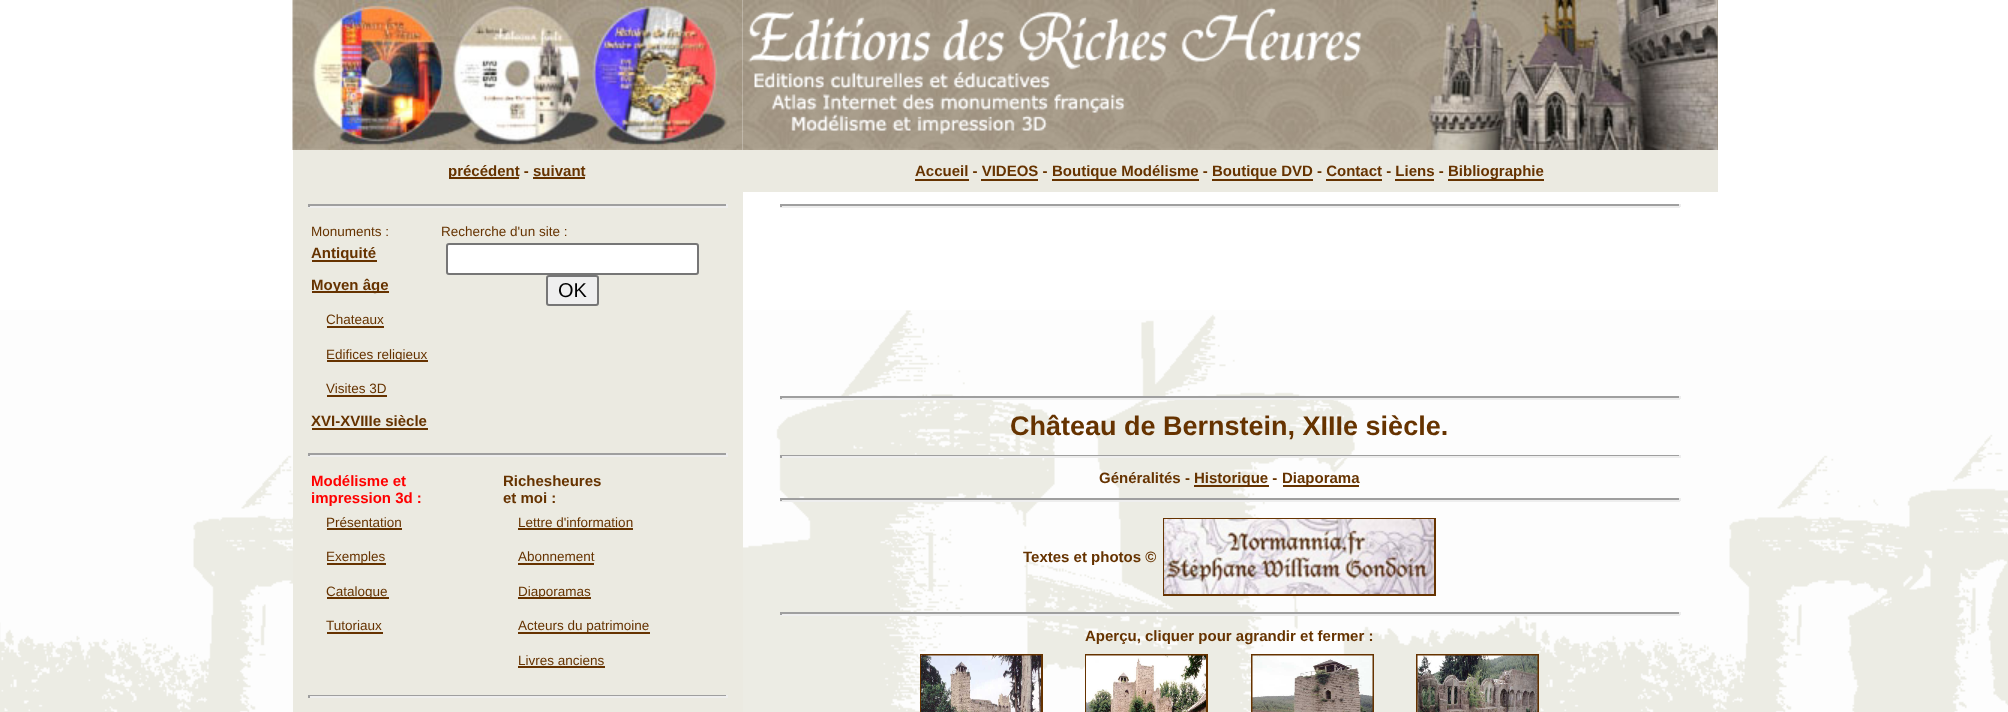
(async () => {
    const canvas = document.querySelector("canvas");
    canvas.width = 2008;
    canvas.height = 712;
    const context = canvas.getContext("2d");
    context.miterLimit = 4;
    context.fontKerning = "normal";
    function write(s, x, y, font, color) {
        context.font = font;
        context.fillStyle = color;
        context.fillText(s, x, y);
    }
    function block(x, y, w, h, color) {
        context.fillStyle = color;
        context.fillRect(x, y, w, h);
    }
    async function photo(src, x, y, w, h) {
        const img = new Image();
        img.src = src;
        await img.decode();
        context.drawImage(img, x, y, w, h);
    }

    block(0, 0, 2008, 712, "rgb(255, 255, 255)");
    await photo("media/1.png", 0, 310, 2008, 402);
    await photo("media/2.png", 292, 0, 451, 150);
    block(1717, 0, 1, 150, "rgb(160, 150, 131)");
    await photo("media/3.png", 742, 0, 976, 150);
    await photo("media/4.png", 748, 7, 614, 128);
    block(293, 150, 1425, 42, "rgb(235, 234, 225)");
    block(449, 177, 70, 2, "rgb(102, 51, 0)");
    write("précédent - suivant", 448, 176, "bold 15px Liberation Sans", "rgb(102, 51, 0)");
    block(533, 177, 52, 2, "rgb(102, 51, 0)");
    write("Accueil - VIDEOS -", 915, 176, "bold 15px Liberation Sans", "rgb(102, 51, 0)");
    block(915, 179, 54, 2, "rgb(102, 51, 0)");
    block(1052, 179, 147, 2, "rgb(102, 51, 0)");
    write("Boutique Modélisme -", 1052, 176, "bold 15px Liberation Sans", "rgb(102, 51, 0)");
    block(1212, 179, 101, 2, "rgb(102, 51, 0)");
    write("Boutique DVD - Contact - Liens -", 1212, 176, "bold 15px Liberation Sans", "rgb(102, 51, 0)");
    block(1448, 179, 96, 2, "rgb(102, 51, 0)");
    write("Bibliographie", 1448, 176, "bold 15px Liberation Sans", "rgb(102, 51, 0)");
    block(981, 179, 57, 2, "rgb(102, 51, 0)");
    block(1326, 179, 56, 2, "rgb(102, 51, 0)");
    block(1395, 179, 39, 2, "rgb(102, 51, 0)");
    block(293, 192, 450, 520, "rgb(235, 234, 225)");
    block(308, 204, 420, 2, "rgb(159, 159, 159)");
    block(726, 204, 2, 3, "rgb(238, 238, 238)");
    block(308, 206, 420, 2, "rgb(238, 238, 238)");
    block(308, 204, 2, 3, "rgb(159, 159, 159)");
    write("Monuments :", 311, 236, "13.5px Liberation Sans", "rgb(102, 51, 0)");
    block(312, 260, 65, 2, "rgb(102, 51, 0)");
    write("Antiquité", 311, 258, "bold 15px Liberation Sans", "rgb(102, 51, 0)");
    block(312, 291, 77, 2, "rgb(102, 51, 0)");
    write("Moyen âge", 311, 290, "bold 15px Liberation Sans", "rgb(102, 51, 0)");
    write("Chateaux", 326, 324, "13.5px Liberation Sans", "rgb(102, 51, 0)");
    block(327, 326, 57, 2, "rgb(102, 51, 0)");
    block(327, 360, 101, 2, "rgb(102, 51, 0)");
    write("Edifices religieux", 326, 359, "13.5px Liberation Sans", "rgb(102, 51, 0)");
    write("Visites 3D", 326, 393, "13.5px Liberation Sans", "rgb(102, 51, 0)");
    block(327, 395, 60, 2, "rgb(102, 51, 0)");
    write("XVI-XVIIIe siècle", 311, 426, "bold 15px Liberation Sans", "rgb(102, 51, 0)");
    block(312, 428, 116, 2, "rgb(102, 51, 0)");
    write("Recherche d'un site :", 441, 236, "13.5px Liberation Sans", "rgb(102, 51, 0)");
    context.fillStyle = "rgb(255, 255, 255)";
    context.beginPath();
    context.roundRect(447, 244, 251, 30, 2);
    context.fill();
    context.strokeStyle = "rgb(118, 118, 118)";
    context.lineWidth = 2;
    context.stroke();
    context.fillStyle = "rgb(239, 239, 239)";
    context.beginPath();
    context.roundRect(547, 276, 51, 29, 2);
    context.fill();
    context.stroke();
    write("OK", 558, 297, "20px Liberation Sans", "rgb(0, 0, 0)");
    block(308, 453, 420, 2, "rgb(159, 159, 159)");
    block(726, 453, 2, 3, "rgb(238, 238, 238)");
    block(308, 455, 420, 2, "rgb(238, 238, 238)");
    block(308, 453, 2, 3, "rgb(159, 159, 159)");
    write("Modélisme et", 311, 486, "bold 15px Liberation Sans", "rgb(255, 0, 0)");
    write("impression 3d :", 311, 503, "bold 15px Liberation Sans", "rgb(255, 0, 0)");
    write("Présentation", 326, 527, "13.5px Liberation Sans", "rgb(102, 51, 0)");
    block(327, 528, 75, 2, "rgb(102, 51, 0)");
    block(327, 563, 59, 2, "rgb(102, 51, 0)");
    write("Exemples", 326, 561, "13.5px Liberation Sans", "rgb(102, 51, 0)");
    block(327, 597, 62, 2, "rgb(102, 51, 0)");
    write("Catalogue", 326, 596, "13.5px Liberation Sans", "rgb(102, 51, 0)");
    write("Tutoriaux", 326, 630, "13.5px Liberation Sans", "rgb(102, 51, 0)");
    block(327, 632, 56, 2, "rgb(102, 51, 0)");
    write("Richesheures", 503, 486, "bold 15px Liberation Sans", "rgb(102, 51, 0)");
    write("et moi :", 503, 503, "bold 15px Liberation Sans", "rgb(102, 51, 0)");
    write("Lettre d'information", 518, 527, "13.5px Liberation Sans", "rgb(102, 51, 0)");
    block(518, 528, 115, 2, "rgb(102, 51, 0)");
    write("Abonnement", 518, 561, "13.5px Liberation Sans", "rgb(102, 51, 0)");
    block(518, 563, 76, 2, "rgb(102, 51, 0)");
    block(518, 597, 73, 2, "rgb(102, 51, 0)");
    write("Diaporamas", 518, 596, "13.5px Liberation Sans", "rgb(102, 51, 0)");
    block(518, 632, 132, 2, "rgb(102, 51, 0)");
    write("Acteurs du patrimoine", 518, 630, "13.5px Liberation Sans", "rgb(102, 51, 0)");
    write("Livres anciens", 518, 665, "13.5px Liberation Sans", "rgb(102, 51, 0)");
    block(518, 666, 87, 2, "rgb(102, 51, 0)");
    block(308, 695, 420, 1, "rgb(159, 159, 159)");
    block(726, 695, 2, 3, "rgb(238, 238, 238)");
    block(308, 696, 420, 2, "rgb(238, 238, 238)");
    block(308, 695, 2, 3, "rgb(159, 159, 159)");
    block(780, 204, 900, 2, "rgb(159, 159, 159)");
    block(1679, 204, 2, 3, "rgb(238, 238, 238)");
    block(780, 206, 900, 2, "rgb(238, 238, 238)");
    block(780, 204, 2, 3, "rgb(159, 159, 159)");
    block(780, 396, 900, 2, "rgb(159, 159, 159)");
    block(1679, 396, 2, 3, "rgb(238, 238, 238)");
    block(780, 398, 900, 2, "rgb(238, 238, 238)");
    block(780, 396, 2, 3, "rgb(159, 159, 159)");
    write("Château de Bernstein, XIIIe siècle.", 1010, 435, "bold 27px Liberation Sans", "rgb(102, 51, 0)");
    block(780, 455, 900, 1, "rgb(159, 159, 159)");
    block(1679, 455, 2, 3, "rgb(238, 238, 238)");
    block(780, 456, 900, 2, "rgb(238, 238, 238)");
    block(780, 455, 2, 3, "rgb(159, 159, 159)");
    write("Généralités -", 1099, 483, "bold 15px Liberation Sans", "rgb(102, 51, 0)");
    block(1194, 485, 75, 2, "rgb(102, 51, 0)");
    write("Historique -", 1194, 483, "bold 15px Liberation Sans", "rgb(102, 51, 0)");
    block(1283, 485, 76, 2, "rgb(102, 51, 0)");
    write("Diaporama", 1282, 483, "bold 15px Liberation Sans", "rgb(102, 51, 0)");
    block(780, 498, 900, 2, "rgb(159, 159, 159)");
    block(1679, 498, 2, 3, "rgb(238, 238, 238)");
    block(780, 500, 900, 2, "rgb(238, 238, 238)");
    block(780, 498, 2, 3, "rgb(159, 159, 159)");
    write("Textes et photos ©", 1023, 562, "bold 15px Liberation Sans", "rgb(102, 51, 0)");
    context.strokeStyle = "rgb(102, 51, 0)";
    context.strokeRect(1164, 519, 271, 76);
    await photo("media/5.png", 1164, 519, 270, 75);
    block(780, 612, 900, 2, "rgb(159, 159, 159)");
    block(1679, 612, 2, 3, "rgb(238, 238, 238)");
    block(780, 614, 900, 2, "rgb(238, 238, 238)");
    block(780, 612, 2, 3, "rgb(159, 159, 159)");
    write("Aperçu, cliquer pour agrandir et fermer :", 1085, 641, "bold 15px Liberation Sans", "rgb(102, 51, 0)");
    context.strokeRect(921, 655, 121, 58);
    await photo("media/6.png", 921, 655, 120, 57);
    context.strokeRect(1086, 655, 121, 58);
    await photo("media/7.png", 1086, 655, 120, 57);
    context.strokeRect(1252, 655, 121, 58);
    await photo("media/8.png", 1252, 655, 121, 57);
    context.strokeRect(1417, 655, 121, 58);
    await photo("media/9.png", 1417, 655, 121, 57);
})();
